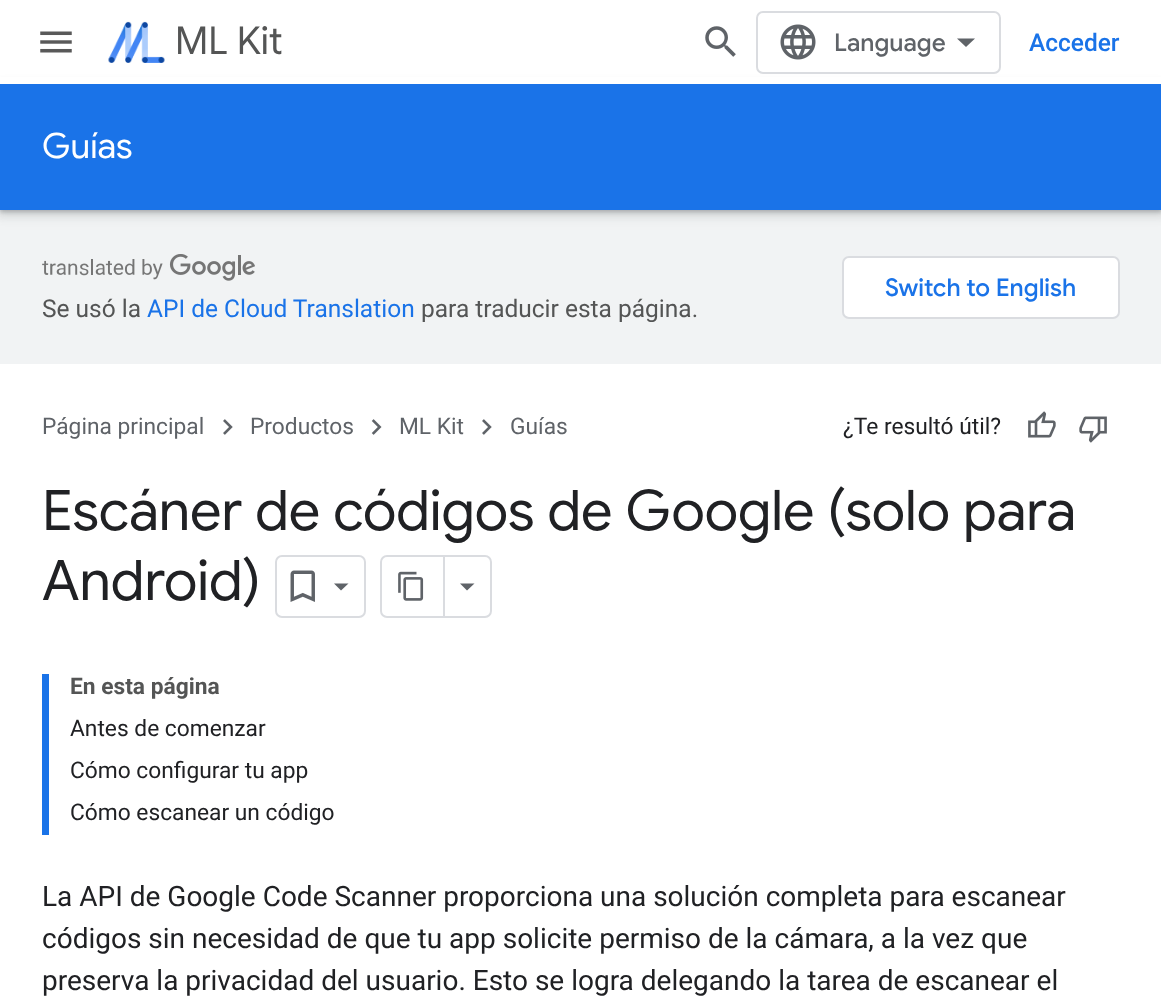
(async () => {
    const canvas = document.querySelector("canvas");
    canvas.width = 1161;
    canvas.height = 1001;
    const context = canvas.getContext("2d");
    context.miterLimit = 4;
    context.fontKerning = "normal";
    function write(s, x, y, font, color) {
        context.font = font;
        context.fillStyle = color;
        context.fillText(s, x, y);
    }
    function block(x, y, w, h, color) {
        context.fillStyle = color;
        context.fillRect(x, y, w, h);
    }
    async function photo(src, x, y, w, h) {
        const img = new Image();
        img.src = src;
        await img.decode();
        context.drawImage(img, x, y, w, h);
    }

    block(0, 0, 1161, 1001, "rgb(255, 255, 255)");
    block(0, 210, 1161, 154, "rgb(241, 243, 244)");
    context.fillStyle = "rgba(60, 64, 67, 0.15)";
    context.filter = "blur(5px)";
    context.beginPath();
    context.rect(-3, 84, 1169, 133);
    context.fill();
    context.filter = "none";
    context.fillStyle = "rgba(60, 64, 67, 0.3)";
    context.filter = "blur(2px)";
    context.beginPath();
    context.rect(0, 86, 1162, 126);
    context.fill();
    context.filter = "none";
    block(0, 77, 1161, 7, "rgb(255, 255, 255)");
    await photo("media/1.png", 40, 31, 32, 22);
    await photo("media/2.png", 108, 21, 57, 42);
    write("ML Kit", 175, 54, "38.5px Google Sans", "rgb(84, 85, 85)");
    await photo("media/3.png", 705, 26, 31, 31);
    context.beginPath();
    context.roundRect(757, 12, 243, 61, 6);
    context.strokeStyle = "rgb(218, 220, 224)";
    context.lineWidth = 2;
    context.stroke();
    await photo("media/4.png", 780, 24, 36, 36);
    write("Language", 834, 51, "500 24.5px Google Sans", "rgb(95, 99, 104)");
    context.beginPath();
    context.moveTo(966, 47);
    context.lineTo(957, 38.5);
    context.lineTo(975, 38.5);
    context.closePath();
    context.fill();
    write("Acceder", 1029, 51, "500 24.5px Roboto", "rgb(26, 115, 232)");
    block(0, 84, 1161, 126, "rgb(26, 115, 232)");
    write("Guías", 42, 158, "35px Google Sans", "rgb(255, 255, 255)");
    context.beginPath();
    context.roundRect(843, 257, 276, 61, 6);
    context.fill();
    context.stroke();
    write("Switch to English", 885, 296, "500 24.5px Google Sans", "rgb(26, 115, 232)");
    await photo("media/5.png", 42, 254, 213, 27);
    write("Se usó la", 42, 317, "24.5px Roboto", "rgb(84, 85, 85)");
    write("API de Cloud Translation", 147, 317, "24.5px Roboto", "rgb(26, 115, 232)");
    write("para traducir esta página.", 421, 317, "24.5px Roboto", "rgb(84, 85, 85)");
    write("Página principal", 42, 434, "22.75px Roboto", "rgb(95, 99, 104)");
    await photo("media/6.png", 223, 419, 10, 16);
    write("Productos", 250, 434, "22.75px Roboto", "rgb(95, 99, 104)");
    await photo("media/7.png", 371, 419, 11, 16);
    write("ML Kit", 399, 434, "22.75px Roboto", "rgb(95, 99, 104)");
    await photo("media/6.png", 482, 419, 10, 16);
    write("Guías", 510, 434, "22.75px Roboto", "rgb(95, 99, 104)");
    write("¿Te resultó útil?", 843, 434, "22.75px Roboto", "rgb(32, 33, 36)");
    await photo("media/8.png", 1028, 411, 28, 27);
    await photo("media/9.png", 1079, 416, 28, 27);
    write("Escáner de códigos de Google (solo para", 42, 530, "56px Google Sans", "rgb(32, 33, 36)");
    write("Android)", 42, 600, "56px Google Sans", "rgb(32, 33, 36)");
    context.beginPath();
    context.roundRect(276, 556, 89, 61, 6);
    context.stroke();
    await photo("media/10.png", 290, 570, 25, 32);
    context.fillStyle = "rgb(95, 99, 104)";
    context.beginPath();
    context.moveTo(334, 583.5);
    context.lineTo(348.5, 583.5);
    context.lineTo(341, 590.5);
    context.closePath();
    context.fill();
    context.beginPath();
    context.roundRect(381, 556, 110, 61, 6);
    context.stroke();
    block(443, 557, 2, 59, "rgb(218, 220, 224)");
    await photo("media/11.png", 398, 571, 26, 30);
    context.fillStyle = "rgb(95, 99, 104)";
    context.beginPath();
    context.moveTo(460, 583.5);
    context.lineTo(474.5, 583.5);
    context.lineTo(467, 590.5);
    context.closePath();
    context.fill();
    block(42, 674, 7, 161, "rgb(26, 115, 232)");
    write("En esta página", 70, 694, "bold 22.75px Roboto", "rgb(84, 85, 85)");
    write("Antes de comenzar", 70, 736, "22.75px Roboto", "rgb(32, 33, 36)");
    write("Cómo configurar tu app", 70, 778, "22.75px Roboto", "rgb(32, 33, 36)");
    write("Cómo escanear un código", 70, 820, "22.75px Roboto", "rgb(32, 33, 36)");
    write("La API de Google Code Scanner proporciona una solución completa para escanear", 42, 906, "28px Roboto", "rgb(32, 33, 36)");
    write("códigos sin necesidad de que tu app solicite permiso de la cámara, a la vez que", 42, 948, "28px Roboto", "rgb(32, 33, 36)");
    write("preserva la privacidad del usuario. Esto se logra delegando la tarea de escanear el", 42, 990, "28px Roboto", "rgb(32, 33, 36)");
})();
